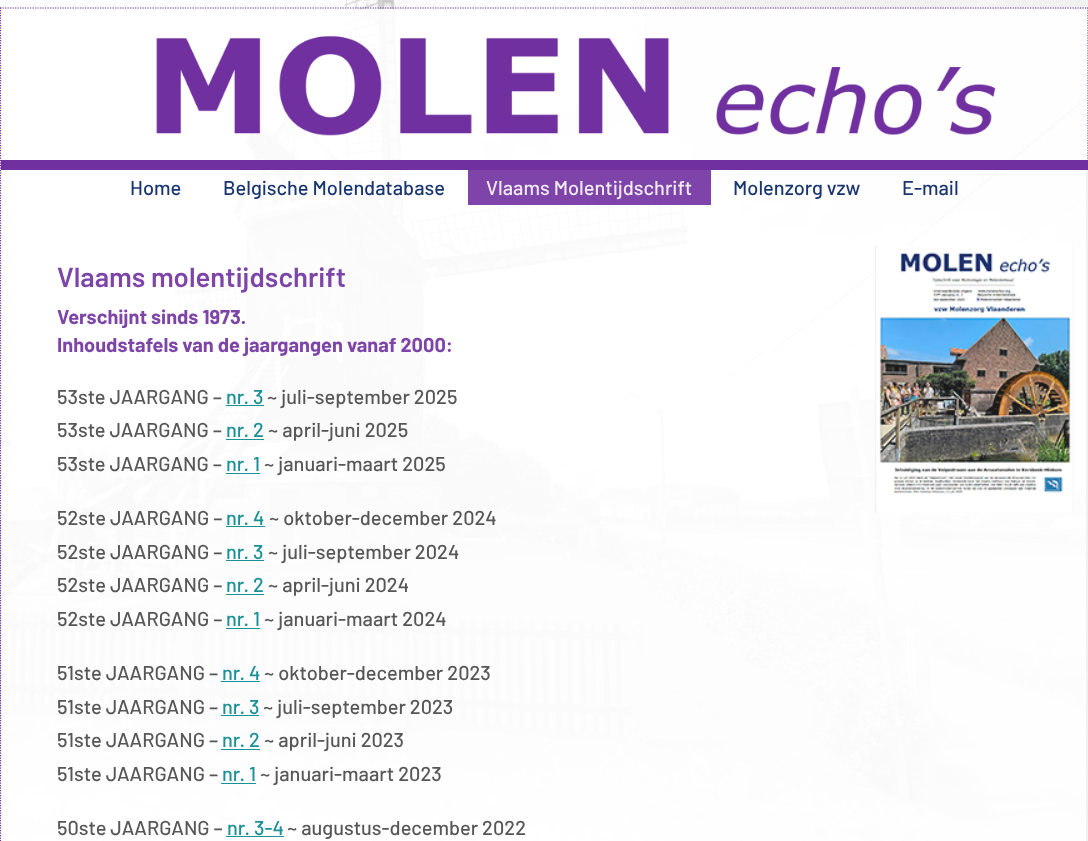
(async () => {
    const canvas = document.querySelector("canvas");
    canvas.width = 1088;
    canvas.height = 841;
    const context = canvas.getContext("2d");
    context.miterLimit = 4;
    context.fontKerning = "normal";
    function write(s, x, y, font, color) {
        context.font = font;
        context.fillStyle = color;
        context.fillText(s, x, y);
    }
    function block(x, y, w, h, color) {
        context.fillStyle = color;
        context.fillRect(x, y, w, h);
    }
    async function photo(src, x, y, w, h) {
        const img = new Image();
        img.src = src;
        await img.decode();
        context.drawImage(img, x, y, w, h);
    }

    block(0, 0, 1088, 841, "rgb(255, 255, 255)");
    await photo("media/1.png", 0, 0, 1088, 841);
    context.beginPath();
    context.moveTo(0, 8);
    context.lineTo(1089, 8);
    context.strokeStyle = "rgb(112, 48, 160)";
    context.lineWidth = 1.2;
    context.setLineDash([1.25, 1.25]);
    context.stroke();
    block(1, 9, 1087, 151, "rgba(255, 255, 255, 0.9)");
    context.beginPath();
    context.moveTo(1088, 7.5);
    context.lineTo(1088, 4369);
    context.stroke();
    context.beginPath();
    context.moveTo(0.5, 7.5);
    context.lineTo(0.5, 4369);
    context.stroke();
    block(1, 160, 1087, 10, "rgb(112, 48, 160)");
    await photo("media/2.png", 156, 36, 840, 100);
    block(1, 170, 1087, 671, "rgba(255, 255, 255, 0.9)");
    context.fillStyle = "rgba(239, 239, 239, 0.9)";
    context.beginPath();
    context.moveTo(1, 170);
    context.lineTo(1088, 170);
    context.lineTo(1088, 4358);
    context.bezierCurveTo(1088, 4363, 1083, 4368, 1078, 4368);
    context.lineTo(11, 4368);
    context.bezierCurveTo(6, 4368, 1, 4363, 1, 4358);
    context.closePath();
    context.moveTo(2, 170);
    context.lineTo(1086, 170);
    context.lineTo(1086, 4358);
    context.bezierCurveTo(1086, 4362, 1082, 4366, 1078, 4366);
    context.lineTo(11, 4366);
    context.bezierCurveTo(6, 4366, 2, 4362, 2, 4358);
    context.closePath();
    context.fill("evenodd");
    write("Home", 130, 195, "500 20px Barlow", "rgb(25, 54, 112)");
    write("Belgische Molendatabase", 223, 195, "500 20px Barlow", "rgb(25, 54, 112)");
    block(468, 170, 243, 35, "rgba(112, 48, 160, 0.9)");
    write("Vlaams Molentijdschrift", 486, 195, "500 20px Barlow", "rgb(242, 236, 246)");
    write("Molenzorg vzw", 733, 195, "500 20px Barlow", "rgb(25, 54, 112)");
    write("E-mail", 902, 195, "500 20px Barlow", "rgb(25, 54, 112)");
    write("Vlaams molentijdschrift", 57, 287, "600 27.5px Barlow", "rgb(126, 69, 169)");
    write("Verschijnt sinds 1973.", 57, 324, "bold 20px Barlow", "rgb(126, 69, 169)");
    write("Inhoudstafels van de jaargangen vanaf 2000:", 57, 352, "bold 20px Barlow", "rgb(126, 69, 169)");
    write("53ste JAARGANG –", 57, 404, "500 20px Barlow", "rgb(87, 87, 87)");
    write("nr. 3", 226, 404, "500 20px Barlow", "rgb(26, 145, 151)");
    block(226, 405, 38, 1, "rgba(1, 133, 140, 0.9)");
    write("~ juli-september 2025", 267, 404, "500 20px Barlow", "rgb(87, 87, 87)");
    write("53ste JAARGANG –", 57, 437, "500 20px Barlow", "rgb(87, 87, 87)");
    write("nr. 2", 226, 437, "500 20px Barlow", "rgb(26, 145, 151)");
    block(226, 439, 38, 1, "rgba(1, 133, 140, 0.9)");
    write("~ april-juni 2025", 268, 437, "500 20px Barlow", "rgb(87, 87, 87)");
    write("53ste JAARGANG –", 57, 471, "500 20px Barlow", "rgb(87, 87, 87)");
    write("nr. 1", 226, 471, "500 20px Barlow", "rgb(26, 145, 151)");
    block(226, 473, 34, 1, "rgba(1, 133, 140, 0.9)");
    write("~ januari-maart 2025", 264, 471, "500 20px Barlow", "rgb(87, 87, 87)");
    write("52ste JAARGANG –", 57, 525, "500 20px Barlow", "rgb(87, 87, 87)");
    write("nr. 4", 226, 525, "500 20px Barlow", "rgb(26, 145, 151)");
    block(226, 526, 39, 1, "rgba(1, 133, 140, 0.9)");
    write("~ oktober-december 2024", 269, 525, "500 20px Barlow", "rgb(87, 87, 87)");
    write("52ste JAARGANG –", 57, 559, "500 20px Barlow", "rgb(87, 87, 87)");
    write("nr. 3", 226, 559, "500 20px Barlow", "rgb(26, 145, 151)");
    block(226, 560, 38, 1, "rgb(26, 145, 151)");
    write("~ juli-september 2024", 268, 559, "500 20px Barlow", "rgb(87, 87, 87)");
    write("52ste JAARGANG –", 57, 592, "500 20px Barlow", "rgb(87, 87, 87)");
    write("nr. 2", 226, 592, "500 20px Barlow", "rgb(26, 145, 151)");
    block(226, 594, 38, 1, "rgb(26, 145, 151)");
    write("~ april-juni 2024", 268, 592, "500 20px Barlow", "rgb(87, 87, 87)");
    write("52ste JAARGANG –", 57, 626, "500 20px Barlow", "rgb(87, 87, 87)");
    write("nr. 1", 226, 626, "500 20px Barlow", "rgb(26, 145, 151)");
    block(226, 628, 34, 1, "rgb(26, 145, 151)");
    write("~ januari-maart 2024", 264, 626, "500 20px Barlow", "rgb(87, 87, 87)");
    write("51ste JAARGANG –", 57, 680, "500 20px Barlow", "rgb(87, 87, 87)");
    write("nr. 4", 222, 680, "500 20px Barlow", "rgb(26, 145, 151)");
    block(221, 681, 39, 1, "rgba(1, 133, 140, 0.9)");
    write("~ oktober-december 2023", 264, 680, "500 20px Barlow", "rgb(87, 87, 87)");
    write("51ste JAARGANG –", 57, 714, "500 20px Barlow", "rgb(87, 87, 87)");
    write("nr. 3", 222, 714, "500 20px Barlow", "rgb(26, 145, 151)");
    block(221, 715, 38, 1, "rgb(26, 145, 151)");
    write("~ juli-september 2023", 263, 714, "500 20px Barlow", "rgb(87, 87, 87)");
    write("51ste JAARGANG –", 57, 747, "500 20px Barlow", "rgb(87, 87, 87)");
    write("nr. 2", 222, 747, "500 20px Barlow", "rgb(26, 145, 151)");
    block(221, 749, 39, 1, "rgb(26, 145, 151)");
    write("~ april-juni 2023", 264, 747, "500 20px Barlow", "rgb(87, 87, 87)");
    write("51ste JAARGANG –", 57, 781, "500 20px Barlow", "rgb(87, 87, 87)");
    write("nr. 1", 222, 781, "500 20px Barlow", "rgb(26, 145, 151)");
    block(221, 783, 35, 1, "rgb(26, 145, 151)");
    write("~ januari-maart 2023", 260, 781, "500 20px Barlow", "rgb(87, 87, 87)");
    write("50ste JAARGANG –", 57, 835, "500 20px Barlow", "rgb(87, 87, 87)");
    write("nr. 3-4", 227, 835, "500 20px Barlow", "rgb(26, 145, 151)");
    block(226, 836, 58, 1, "rgb(26, 145, 151)");
    write("~ augustus-december 2022", 287, 835, "500 20px Barlow", "rgb(87, 87, 87)");
    await photo("media/3.png", 875, 245, 199, 268);
})();
